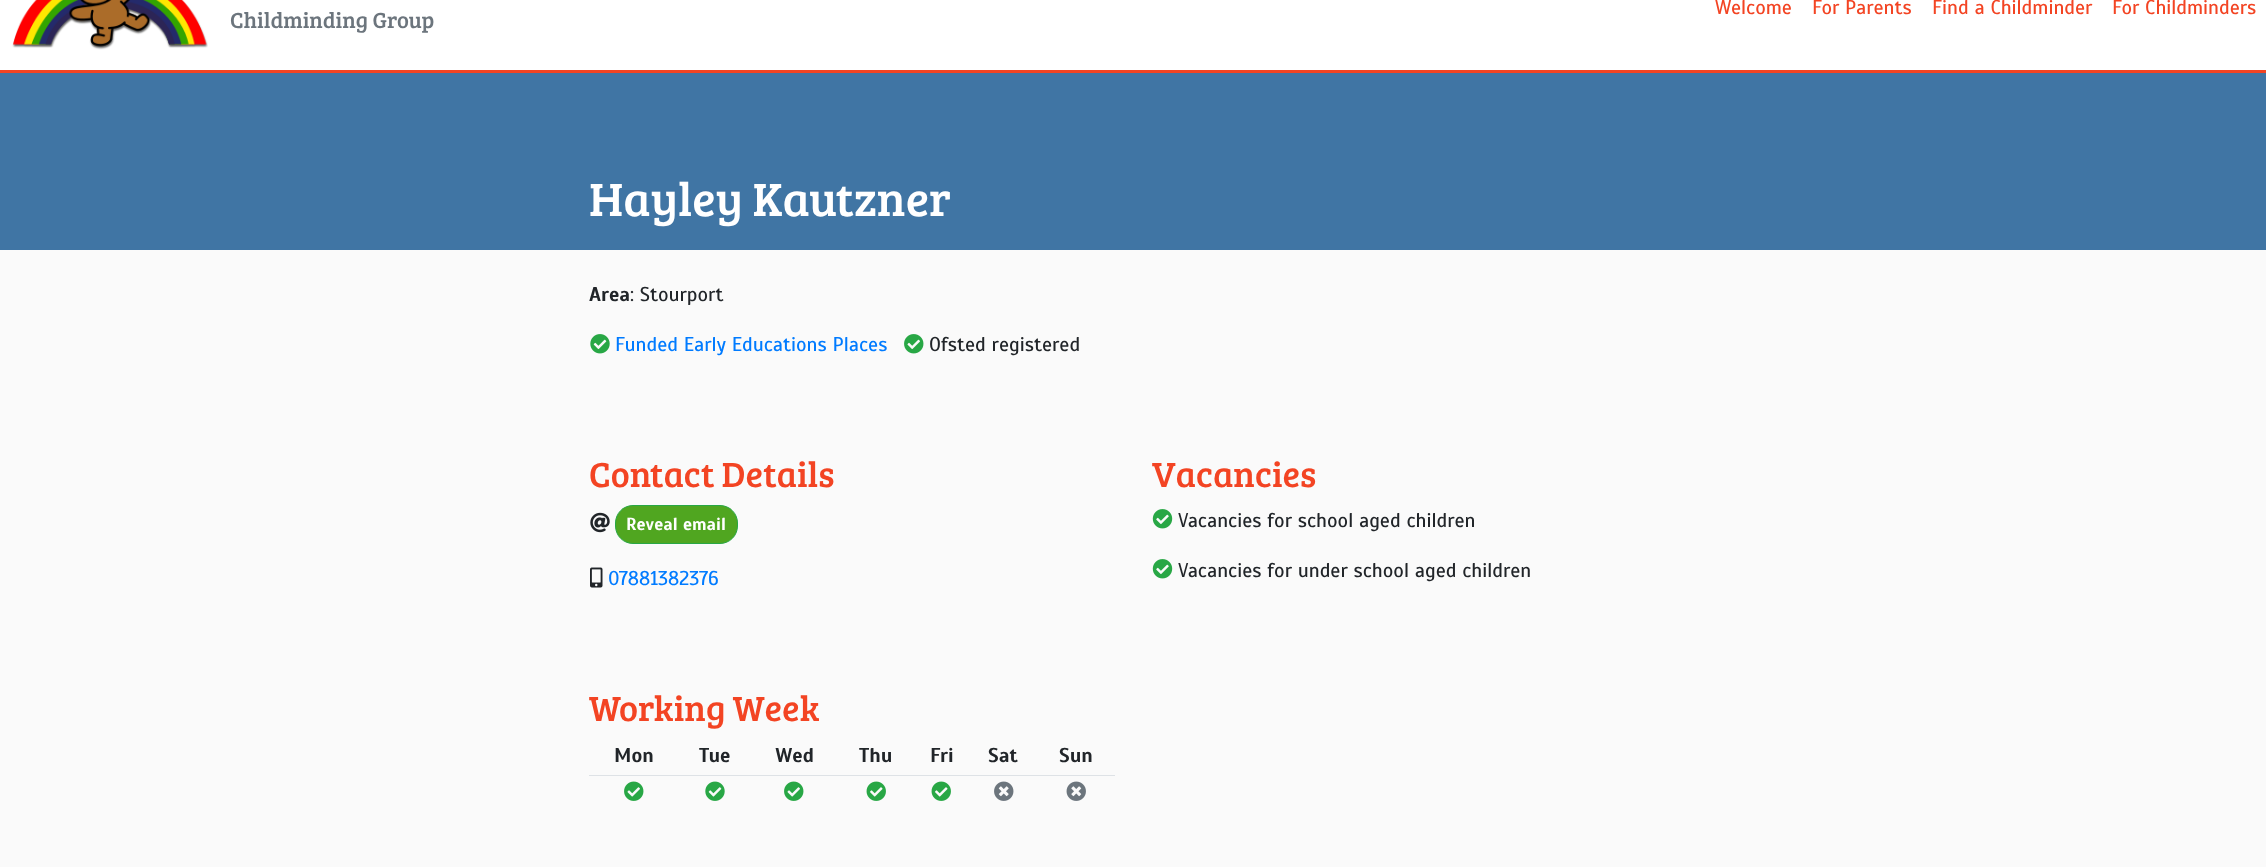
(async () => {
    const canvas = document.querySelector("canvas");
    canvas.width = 2266;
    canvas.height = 867;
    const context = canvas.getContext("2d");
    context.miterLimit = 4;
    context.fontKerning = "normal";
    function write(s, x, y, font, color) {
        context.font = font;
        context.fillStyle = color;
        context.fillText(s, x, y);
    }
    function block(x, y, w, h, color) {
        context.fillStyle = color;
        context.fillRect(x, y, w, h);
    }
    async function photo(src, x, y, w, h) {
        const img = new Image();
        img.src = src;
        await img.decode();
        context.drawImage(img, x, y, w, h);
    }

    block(0, 0, 2266, 867, "rgb(250, 250, 250)");
    block(0, 0, 2266, 70, "rgb(255, 255, 255)");
    block(0, 70, 2266, 3, "rgb(243, 68, 35)");
    await photo("media/1.png", 12, 0, 196, 50);
    write("Welcome", 1715, 14, "20px Scada", "rgb(243, 68, 35)");
    write("For Parents", 1812, 14, "20px Scada", "rgb(243, 68, 35)");
    write("Find a Childminder", 1932, 14, "20px Scada", "rgb(243, 68, 35)");
    write("For Childminders", 2112, 14, "20px Scada", "rgb(243, 68, 35)");
    write("Childminding Group", 230, 28, "22.5px Bree Serif", "rgb(108, 117, 125)");
    block(0, 73, 2266, 177, "rgb(64, 117, 164)");
    write("Hayley Kautzner", 589, 216, "48px Bree Serif", "rgb(255, 255, 255)");
    write("Area", 589, 301, "bold 20px Scada", "rgb(33, 37, 41)");
    write(": Stourport", 630, 301, "20px Scada", "rgb(33, 37, 41)");
    await photo("media/2.png", 590, 334, 20, 20);
    write("Funded Early Educations Places", 615, 351, "20px Scada", "rgb(0, 123, 255)");
    await photo("media/3.png", 904, 334, 20, 20);
    write("Ofsted registered", 929, 351, "20px Scada", "rgb(33, 37, 41)");
    write("Contact Details", 589, 487, "36px Bree Serif", "rgb(243, 68, 35)");
    await photo("media/4.png", 590, 512, 20, 21);
    context.fillStyle = "rgb(80, 166, 32)";
    context.beginPath();
    context.roundRect(615.5, 505.5, 122, 38, 17.5);
    context.fill();
    context.strokeStyle = "rgb(40, 167, 69)";
    context.stroke();
    write("Reveal email", 626, 530, "bold 17.5px Scada", "rgb(255, 255, 255)");
    await photo("media/5.png", 590, 567, 13, 21);
    write("07881382376", 608, 585, "20px Scada", "rgb(0, 123, 255)");
    write("Vacancies", 1152, 487, "36px Bree Serif", "rgb(243, 68, 35)");
    await photo("media/6.png", 1152, 509, 21, 20);
    write("Vacancies for school aged children", 1178, 527, "20px Scada", "rgb(33, 37, 41)");
    await photo("media/6.png", 1152, 559, 21, 20);
    write("Vacancies for under school aged children", 1178, 577, "20px Scada", "rgb(33, 37, 41)");
    write("Working Week", 589, 721, "36px Bree Serif", "rgb(243, 68, 35)");
    block(589, 775, 526, 1, "rgb(222, 226, 230)");
    write("Mon", 614, 762, "bold 20px Scada", "rgb(33, 37, 41)");
    write("Tue", 699, 762, "bold 20px Scada", "rgb(33, 37, 41)");
    write("Wed", 775, 762, "bold 20px Scada", "rgb(33, 37, 41)");
    write("Thu", 859, 762, "bold 20px Scada", "rgb(33, 37, 41)");
    write("Fri", 930, 762, "bold 20px Scada", "rgb(33, 37, 41)");
    write("Sat", 988, 762, "bold 20px Scada", "rgb(33, 37, 41)");
    write("Sun", 1059, 762, "bold 20px Scada", "rgb(33, 37, 41)");
    await photo("media/7.png", 624, 781, 20, 20);
    await photo("media/8.png", 705, 781, 20, 20);
    await photo("media/7.png", 784, 781, 20, 20);
    await photo("media/9.png", 866, 781, 20, 20);
    await photo("media/9.png", 931, 781, 20, 20);
    await photo("media/10.png", 994, 781, 20, 20);
    await photo("media/11.png", 1066, 781, 20, 20);
})();
